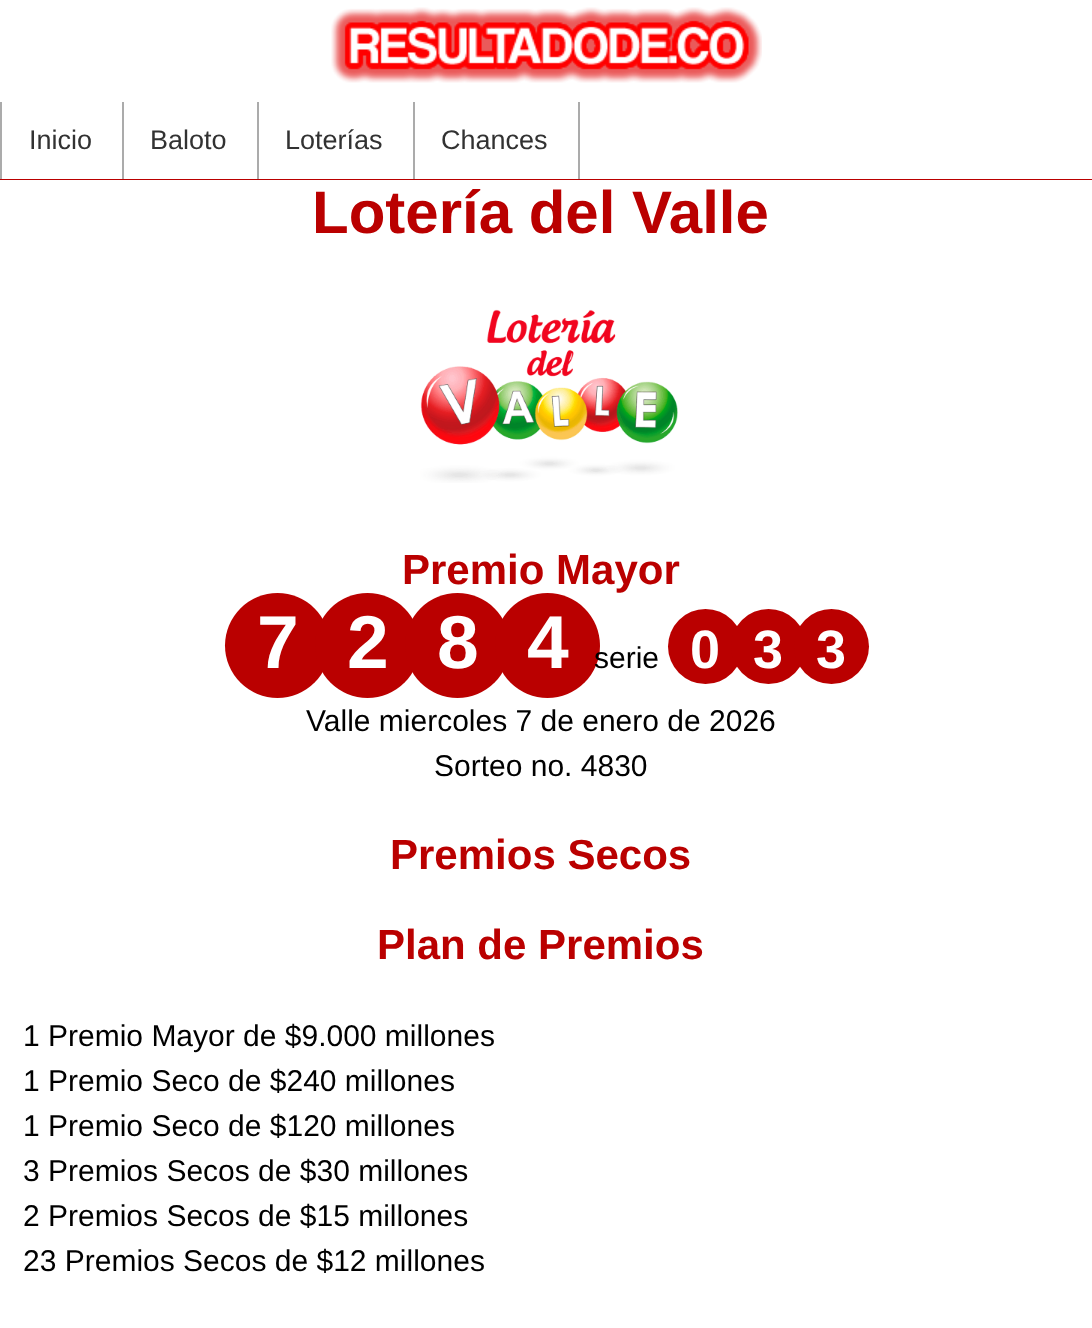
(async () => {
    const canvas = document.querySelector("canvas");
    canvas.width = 1092;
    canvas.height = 1328;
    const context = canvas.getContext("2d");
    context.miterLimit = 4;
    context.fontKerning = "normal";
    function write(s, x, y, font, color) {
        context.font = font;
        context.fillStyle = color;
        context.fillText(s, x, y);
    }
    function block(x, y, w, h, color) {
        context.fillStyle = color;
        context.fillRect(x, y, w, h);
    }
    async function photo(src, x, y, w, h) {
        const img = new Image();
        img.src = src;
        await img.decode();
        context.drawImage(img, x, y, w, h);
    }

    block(0, 0, 1092, 1328, "rgb(186, 0, 0)");
    block(0, 0, 1092, 179, "rgb(255, 255, 255)");
    await photo("media/1.png", 331, 7, 431, 76);
    block(122, 102, 2, 77, "rgb(171, 171, 171)");
    block(0, 102, 2, 77, "rgb(171, 171, 171)");
    write("Inicio", 29, 149, "27px Liberation Sans", "rgb(50, 50, 50)");
    block(257, 102, 2, 77, "rgb(171, 171, 171)");
    write("Baloto", 150, 149, "27px Liberation Sans", "rgb(50, 50, 50)");
    block(413, 102, 2, 77, "rgb(171, 171, 171)");
    write("Loterías", 285, 149, "27px Liberation Sans", "rgb(50, 50, 50)");
    block(578, 102, 2, 77, "rgb(171, 171, 171)");
    write("Chances", 441, 149, "27px Liberation Sans", "rgb(50, 50, 50)");
    block(0, 180, 1092, 1148, "rgb(255, 255, 255)");
    write("Lotería del Valle", 312, 233, "bold 60px Liberation Sans", "rgb(186, 0, 0)");
    await photo("media/2.png", 420, 309, 258, 174);
    write("Premio Mayor", 402, 584, "bold 42px Liberation Sans", "rgb(186, 0, 0)");
    context.beginPath();
    context.arc(277.5, 645.5, 52.5, 0, Math.PI * 2);
    context.fill();
    write("7", 257, 668, "bold 75px Liberation Sans", "rgb(255, 255, 255)");
    context.fillStyle = "rgb(186, 0, 0)";
    context.beginPath();
    context.arc(367.5, 645.5, 52.5, 0, Math.PI * 2);
    context.fill();
    write("2", 347, 668, "bold 75px Liberation Sans", "rgb(255, 255, 255)");
    context.fillStyle = "rgb(186, 0, 0)";
    context.beginPath();
    context.arc(457.5, 645.5, 52.5, 0, Math.PI * 2);
    context.fill();
    write("8", 437, 668, "bold 75px Liberation Sans", "rgb(255, 255, 255)");
    context.fillStyle = "rgb(186, 0, 0)";
    context.beginPath();
    context.arc(547.5, 645.5, 52.5, 0, Math.PI * 2);
    context.fill();
    write("4", 527, 668, "bold 75px Liberation Sans", "rgb(255, 255, 255)");
    write("serie", 594, 668, "30px Liberation Sans", "rgb(0, 0, 0)");
    context.fillStyle = "rgb(186, 0, 0)";
    context.beginPath();
    context.arc(705.5, 646.5, 37.5, 0, Math.PI * 2);
    context.fill();
    write("0", 690, 668, "bold 54px Liberation Sans", "rgb(255, 255, 255)");
    context.fillStyle = "rgb(186, 0, 0)";
    context.beginPath();
    context.arc(768.5, 646.5, 37.5, 0, Math.PI * 2);
    context.fill();
    write("3", 753, 668, "bold 54px Liberation Sans", "rgb(255, 255, 255)");
    context.fillStyle = "rgb(186, 0, 0)";
    context.beginPath();
    context.arc(831.5, 646.5, 37.5, 0, Math.PI * 2);
    context.fill();
    write("3", 816, 668, "bold 54px Liberation Sans", "rgb(255, 255, 255)");
    write("Valle miercoles 7 de enero de 2026", 306, 731, "30px Liberation Sans", "rgb(0, 0, 0)");
    write("Sorteo no. 4830", 434, 776, "30px Liberation Sans", "rgb(0, 0, 0)");
    write("Premios Secos", 390, 869, "bold 42px Liberation Sans", "rgb(186, 0, 0)");
    write("Plan de Premios", 377, 959, "bold 42px Liberation Sans", "rgb(186, 0, 0)");
    write("1 Premio Mayor de $9.000 millones", 23, 1046, "30px Liberation Sans", "rgb(0, 0, 0)");
    write("1 Premio Seco de $240 millones", 23, 1091, "30px Liberation Sans", "rgb(0, 0, 0)");
    write("1 Premio Seco de $120 millones", 23, 1136, "30px Liberation Sans", "rgb(0, 0, 0)");
    write("3 Premios Secos de $30 millones", 23, 1181, "30px Liberation Sans", "rgb(0, 0, 0)");
    write("2 Premios Secos de $15 millones", 23, 1226, "30px Liberation Sans", "rgb(0, 0, 0)");
    write("23 Premios Secos de $12 millones", 23, 1271, "30px Liberation Sans", "rgb(0, 0, 0)");
})();
